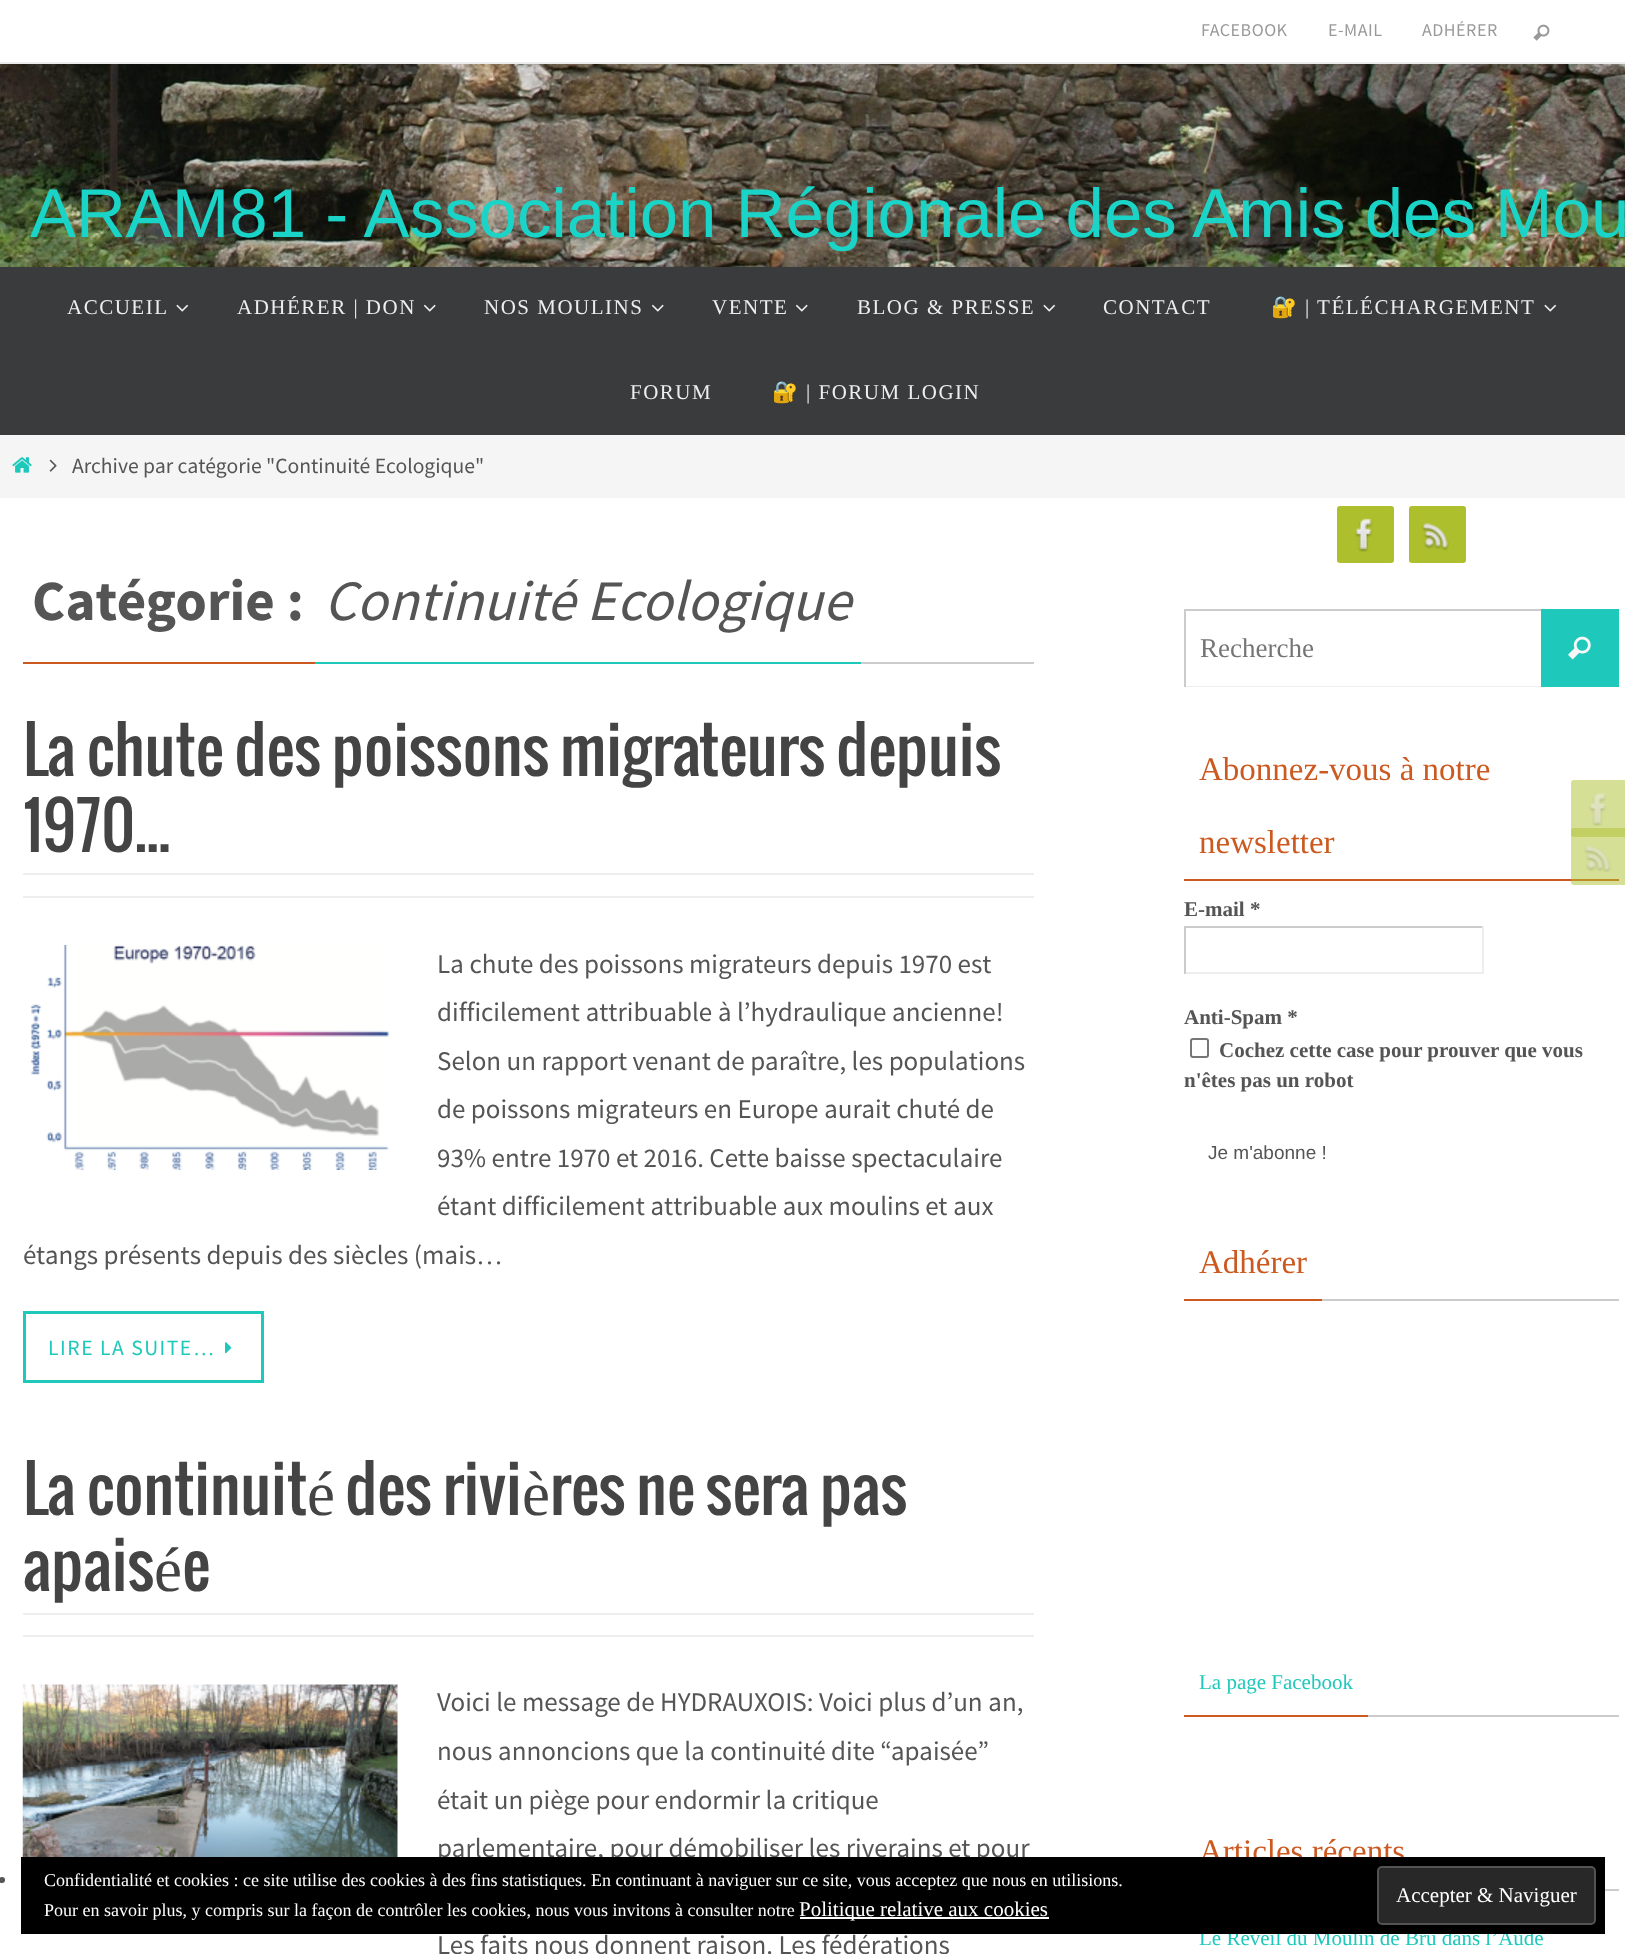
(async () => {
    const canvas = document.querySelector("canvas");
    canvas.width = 1625;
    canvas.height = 1954;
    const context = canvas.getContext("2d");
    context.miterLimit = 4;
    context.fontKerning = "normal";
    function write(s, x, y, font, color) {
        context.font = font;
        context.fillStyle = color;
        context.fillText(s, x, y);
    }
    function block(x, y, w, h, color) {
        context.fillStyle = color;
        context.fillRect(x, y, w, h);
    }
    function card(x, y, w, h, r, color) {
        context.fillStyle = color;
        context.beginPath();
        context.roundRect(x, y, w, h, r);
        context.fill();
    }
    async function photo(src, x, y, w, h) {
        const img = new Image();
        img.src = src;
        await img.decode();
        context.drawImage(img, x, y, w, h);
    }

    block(0, 0, 1625, 1954, "rgb(255, 255, 255)");
    block(0, 62, 1625, 2, "rgb(235, 235, 235)");
    context.letterSpacing = "0.5px";
    write("FACEBOOK", 1201, 36, "18px Source Sans Pro", "rgb(153, 153, 153)");
    write("E-MAIL", 1328, 36, "18px Source Sans Pro", "rgb(153, 153, 153)");
    write("ADHÉRER", 1422, 36, "18px Source Sans Pro", "rgb(153, 153, 153)");
    await photo("media/1.png", 1533, 24, 17, 17);
    await photo("media/2.png", 0, 64, 1625, 203);
    context.letterSpacing = "0px";
    write("ARAM81 - Association Régionale des Amis des Mou", 30, 237, "69px Liberation Sans", "rgb(26, 213, 199)");
    block(0, 267, 1625, 168, "rgb(58, 59, 61)");
    context.letterSpacing = "1.5px";
    write("ACCUEIL", 67, 314, "21px Liberation Serif", "rgb(238, 238, 238)");
    await photo("media/3.png", 176, 304, 13, 8);
    write("ADHÉRER | DON", 237, 314, "21px Liberation Serif", "rgb(238, 238, 238)");
    await photo("media/4.png", 424, 304, 12, 8);
    write("NOS MOULINS", 484, 314, "21px Liberation Serif", "rgb(238, 238, 238)");
    await photo("media/4.png", 652, 304, 12, 8);
    write("VENTE", 712, 314, "21px Liberation Serif", "rgb(238, 238, 238)");
    await photo("media/4.png", 796, 304, 12, 8);
    write("BLOG & PRESSE", 857, 314, "21px Liberation Serif", "rgb(238, 238, 238)");
    await photo("media/3.png", 1043, 304, 13, 8);
    write("CONTACT", 1103, 314, "21px Liberation Serif", "rgb(238, 238, 238)");
    write("🔐", 1271, 314, "21px Noto Color Emoji", "rgb(238, 238, 238)");
    write("| TÉLÉCHARGEMENT", 1305, 314, "21px Liberation Serif", "rgb(238, 238, 238)");
    await photo("media/3.png", 1544, 304, 13, 8);
    write("FORUM", 630, 399, "21px Liberation Serif", "rgb(238, 238, 238)");
    write("🔐", 772, 399, "21px Noto Color Emoji", "rgb(238, 238, 238)");
    write("| FORUM LOGIN", 806, 399, "21px Liberation Serif", "rgb(238, 238, 238)");
    block(0, 435, 1625, 63, "rgb(245, 245, 245)");
    await photo("media/5.png", 12, 457, 20, 16);
    await photo("media/6.png", 49, 459, 8, 13);
    context.letterSpacing = "0px";
    write("Archive par catégorie \"Continuité Ecologique\"", 72, 473, "21.6px Source Sans Pro", "rgb(85, 85, 85)");
    block(861, 662, 173, 2, "rgb(204, 204, 204)");
    block(23, 662, 292, 2, "rgb(203, 89, 32)");
    write("Catégorie :", 32, 620, "bold 57px Source Sans Pro", "rgb(85, 85, 85)");
    block(315, 662, 546, 2, "rgb(30, 200, 187)");
    write("Continuité Ecologique", 324, 620, "italic 57px Source Sans Pro", "rgb(85, 85, 85)");
    write("La chute des poissons migrateurs depuis", 23, 776, "63px Oswald", "rgb(68, 68, 68)");
    write("1970…", 23, 852, "63px Oswald", "rgb(68, 68, 68)");
    block(23, 873, 1011, 2, "rgb(238, 238, 238)");
    block(23, 896, 1011, 2, "rgb(238, 238, 238)");
    await photo("media/7.png", 30, 945, 359, 225);
    write("La chute des poissons migrateurs depuis 1970 est", 437, 973, "27px Source Sans Pro", "rgb(85, 85, 85)");
    write("difficilement attribuable à l’hydraulique ancienne!", 437, 1021, "27px Source Sans Pro", "rgb(85, 85, 85)");
    write("Selon un rapport venant de paraître, les populations", 437, 1070, "27px Source Sans Pro", "rgb(85, 85, 85)");
    write("de poissons migrateurs en Europe aurait chuté de", 437, 1118, "27px Source Sans Pro", "rgb(85, 85, 85)");
    write("93% entre 1970 et 2016. Cette baisse spectaculaire", 437, 1167, "27px Source Sans Pro", "rgb(85, 85, 85)");
    write("étant difficilement attribuable aux moulins et aux", 437, 1215, "27px Source Sans Pro", "rgb(85, 85, 85)");
    write("étangs présents depuis des siècles (mais", 23, 1264, "27px Source Sans Pro", "rgb(85, 85, 85)");
    write("…", 476, 1264, "27px Liberation Serif", "rgb(85, 85, 85)");
    context.strokeStyle = "rgb(30, 200, 187)";
    context.lineWidth = 3;
    context.strokeRect(24.5, 1312.5, 238, 69);
    context.letterSpacing = "1.5px";
    write("LIRE LA SUITE", 48, 1355, "21.6px Source Sans Pro", "rgb(30, 200, 187)");
    write("…", 193, 1355, "21.6px Liberation Serif", "rgb(30, 200, 187)");
    await photo("media/8.png", 225, 1342, 7, 12);
    context.letterSpacing = "0px";
    write("La continuit", 23, 1515, "63px Oswald", "rgb(68, 68, 68)");
    write("é", 307, 1515, "63px Liberation Serif", "rgb(68, 68, 68)");
    write("des rivi", 345, 1515, "63px Oswald", "rgb(68, 68, 68)");
    write("è", 522, 1515, "63px Liberation Serif", "rgb(68, 68, 68)");
    write("res ne sera pas", 550, 1515, "63px Oswald", "rgb(68, 68, 68)");
    write("apais", 23, 1591, "63px Oswald", "rgb(68, 68, 68)");
    write("é", 154, 1591, "63px Liberation Serif", "rgb(68, 68, 68)");
    write("e", 182, 1591, "63px Oswald", "rgb(68, 68, 68)");
    block(23, 1613, 1011, 2, "rgb(238, 238, 238)");
    block(23, 1635, 1011, 2, "rgb(238, 238, 238)");
    await photo("media/9.png", 22, 1684, 376, 173);
    write("Voici le message de HYDRAUXOIS: Voici plus d’un an,", 437, 1711, "27px Source Sans Pro", "rgb(85, 85, 85)");
    write("nous annoncions que la continuité dite “apaisée”", 437, 1760, "27px Source Sans Pro", "rgb(85, 85, 85)");
    write("était un piège pour endormir la critique", 437, 1809, "27px Source Sans Pro", "rgb(85, 85, 85)");
    write("parlementaire, pour démobiliser les riverains et pour", 437, 1857, "27px Source Sans Pro", "rgb(85, 85, 85)");
    write("Les faits nous donnent raison. Les fédérations", 437, 1954, "27px Source Sans Pro", "rgb(85, 85, 85)");
    card(1337, 506, 57, 57, 3, "rgb(173, 191, 45)");
    await photo("media/10.png", 1355, 518, 18, 34);
    card(1409, 506, 57, 57, 3, "rgb(173, 191, 45)");
    await photo("media/11.png", 1422, 523, 27, 28);
    block(1541, 609, 78, 78, "rgb(30, 200, 187)");
    block(1184, 609, 357, 2, "rgb(204, 204, 204)");
    block(1184, 686, 357, 1, "rgb(238, 238, 238)");
    block(1184, 609, 2, 78, "rgb(204, 204, 204)");
    write("Recherche", 1200, 657, "27px Liberation Serif", "rgb(117, 117, 117)");
    await photo("media/12.png", 1568, 636, 23, 24);
    block(1184, 879, 435, 2, "rgb(203, 89, 32)");
    write("Abonnez-vous à notre", 1199, 780, "33px Liberation Serif", "rgb(203, 89, 32)");
    write("newsletter", 1199, 853, "33px Liberation Serif", "rgb(203, 89, 32)");
    write("E-mail *", 1184, 916, "bold 21px Liberation Serif", "rgb(85, 85, 85)");
    block(1184, 926, 300, 2, "rgb(204, 204, 204)");
    block(1482, 926, 2, 48, "rgb(238, 238, 238)");
    block(1184, 972, 300, 2, "rgb(238, 238, 238)");
    block(1184, 926, 2, 48, "rgb(204, 204, 204)");
    write("Anti-Spam *", 1184, 1024, "bold 21px Liberation Serif", "rgb(85, 85, 85)");
    context.beginPath();
    context.roundRect(1191, 1039, 17, 18, 2);
    context.strokeStyle = "rgb(118, 118, 118)";
    context.lineWidth = 2;
    context.stroke();
    write("Cochez cette case pour prouver que vous", 1219, 1057, "bold 21px Liberation Serif", "rgb(85, 85, 85)");
    write("n'êtes pas un robot", 1184, 1087, "bold 21px Liberation Serif", "rgb(85, 85, 85)");
    write("Je m'abonne !", 1208, 1159, "19px Liberation Sans", "rgb(85, 85, 85)");
    block(1322, 1299, 297, 2, "rgb(204, 204, 204)");
    block(1184, 1299, 138, 2, "rgb(203, 89, 32)");
    write("Adhérer", 1199, 1273, "33px Liberation Serif", "rgb(203, 89, 32)");
    block(1368, 1715, 251, 2, "rgb(204, 204, 204)");
    block(1184, 1715, 184, 2, "rgb(203, 89, 32)");
    write("La page Facebook", 1199, 1689, "21px Liberation Serif", "rgb(30, 200, 187)");
    block(1605, 1889, 14, 2, "rgb(204, 204, 204)");
    write("Articles récents", 1199, 1862, "33px Liberation Serif", "rgb(203, 89, 32)");
    write("Le Réveil du Moulin de Bru dans l’Aude", 1199, 1945, "21px Liberation Serif", "rgb(30, 200, 187)");
    card(1571, 780, 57, 57, 3, "rgb(214, 223, 150)");
    await photo("media/13.png", 1589, 793, 17, 33);
    card(1571, 828, 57, 57, 3, "rgba(173, 191, 45, 0.5)");
    await photo("media/14.png", 1584, 846, 27, 26);
    context.fillStyle = "rgb(85, 85, 85)";
    context.beginPath();
    context.arc(2, 1880, 3, 0, Math.PI * 2);
    context.fill();
    block(21, 1857, 1584, 77, "rgb(0, 0, 0)");
    write("Confidentialité et cookies : ce site utilise des cookies à des fins statistiques. En continuant à naviguer sur ce site, vous acceptez que nous en utilisions.", 44, 1886, "18px Liberation Serif", "rgb(255, 255, 255)");
    context.fillStyle = "rgb(40, 40, 40)";
    context.beginPath();
    context.roundRect(1378, 1867, 217, 57, 4);
    context.fill();
    context.strokeStyle = "rgb(83, 83, 83)";
    context.stroke();
    write("Accepter & Naviguer", 1396, 1902, "21px Liberation Serif", "rgb(255, 255, 255)");
    write("Pour en savoir plus, y compris sur la façon de contrôler les cookies, nous vous invitons à consulter notre", 44, 1916, "18px Liberation Serif", "rgb(255, 255, 255)");
    block(800, 1917, 249, 2, "rgb(255, 255, 255)");
    write("Politique relative aux cookies", 799, 1916, "21px Liberation Serif", "rgb(255, 255, 255)");
})();
